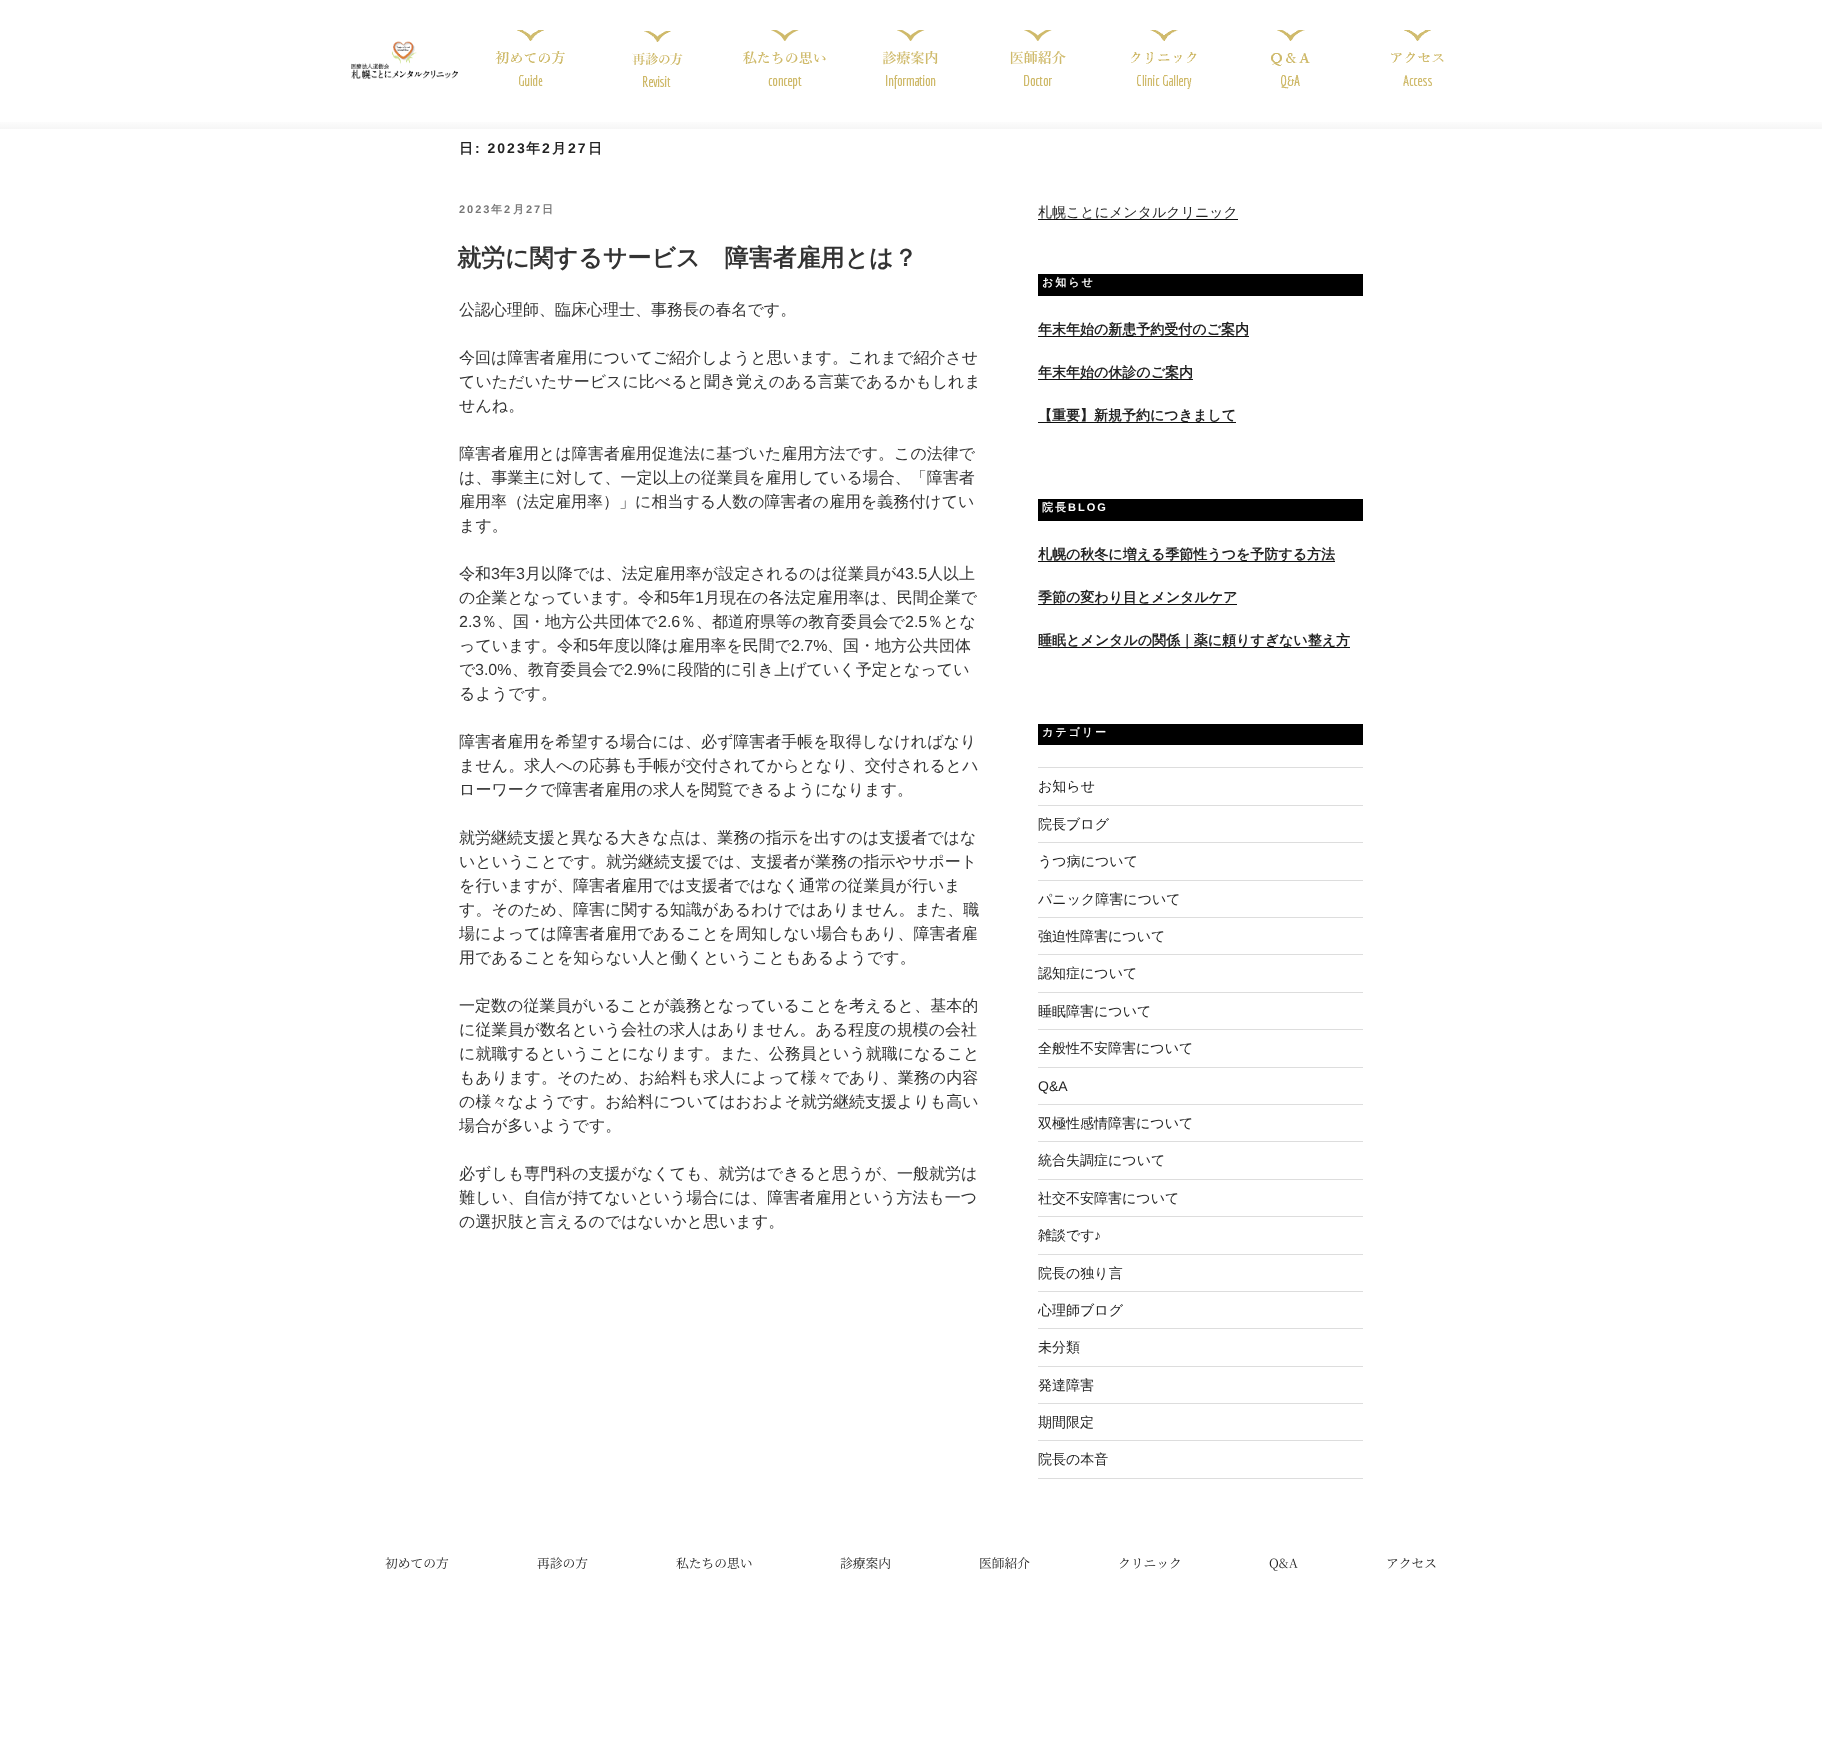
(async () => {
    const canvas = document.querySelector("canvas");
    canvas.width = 1822;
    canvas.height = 1749;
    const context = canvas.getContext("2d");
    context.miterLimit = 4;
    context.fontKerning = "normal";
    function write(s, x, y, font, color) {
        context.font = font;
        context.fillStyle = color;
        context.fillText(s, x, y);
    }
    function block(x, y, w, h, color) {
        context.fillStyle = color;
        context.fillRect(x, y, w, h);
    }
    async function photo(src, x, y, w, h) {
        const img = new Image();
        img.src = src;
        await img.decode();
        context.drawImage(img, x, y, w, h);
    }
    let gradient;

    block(0, 0, 1822, 1749, "rgb(255, 255, 255)");
    gradient = context.createLinearGradient(911, 0, 911, 129);
    gradient.addColorStop(0.92, "rgb(255, 255, 255)");
    gradient.addColorStop(1, "rgb(246, 246, 246)");
    context.fillStyle = gradient;
    context.fillRect(0, 122, 1822, 7);
    await photo("media/1.png", 351, 41, 107, 38);
    await photo("media/2.png", 495, 30, 70, 57);
    await photo("media/3.png", 632, 31, 51, 56);
    await photo("media/4.png", 743, 30, 83, 59);
    await photo("media/5.png", 883, 30, 55, 59);
    await photo("media/6.png", 1010, 30, 56, 56);
    await photo("media/7.png", 1131, 30, 66, 59);
    await photo("media/8.png", 1271, 30, 39, 59);
    await photo("media/9.png", 1391, 30, 53, 56);
    context.letterSpacing = "2px";
    write("日", 459, 153, "bold 14px WenQuanYi Zen Hei", "rgb(34, 34, 34)");
    write(": 2023", 475, 153, "bold 14px Liberation Sans", "rgb(34, 34, 34)");
    write("年", 526, 153, "bold 14px WenQuanYi Zen Hei", "rgb(34, 34, 34)");
    write("2", 542, 153, "bold 14px Liberation Sans", "rgb(34, 34, 34)");
    write("月", 552, 153, "bold 14px WenQuanYi Zen Hei", "rgb(34, 34, 34)");
    write("27", 568, 153, "bold 14px Liberation Sans", "rgb(34, 34, 34)");
    write("日", 588, 153, "bold 14px WenQuanYi Zen Hei", "rgb(34, 34, 34)");
    write("2023", 459, 213, "bold 11px Liberation Sans", "rgb(118, 118, 118)");
    write("年", 491, 213, "bold 11px WenQuanYi Zen Hei", "rgb(118, 118, 118)");
    write("2", 504, 213, "bold 11px Liberation Sans", "rgb(118, 118, 118)");
    write("月", 513, 213, "bold 11px WenQuanYi Zen Hei", "rgb(118, 118, 118)");
    write("27", 526, 213, "bold 11px Liberation Sans", "rgb(118, 118, 118)");
    write("日", 542, 213, "bold 11px WenQuanYi Zen Hei", "rgb(118, 118, 118)");
    context.letterSpacing = "0px";
    write("就労に関するサービス　障害者雇用とは？", 457, 266, "bold 24px WenQuanYi Zen Hei", "rgb(51, 51, 51)");
    write("公認心理師、臨床心理士、事務長の春名です。", 459, 315, "500 16px WenQuanYi Zen Hei", "rgb(51, 51, 51)");
    write("今回は障害者雇用についてご紹介しようと思います。これまで紹介させ", 459, 363, "500 16px WenQuanYi Zen Hei", "rgb(51, 51, 51)");
    write("ていただいたサービスに比べると聞き覚えのある言葉であるかもしれま", 459, 387, "500 16px WenQuanYi Zen Hei", "rgb(51, 51, 51)");
    write("せんね。", 459, 411, "500 16px WenQuanYi Zen Hei", "rgb(51, 51, 51)");
    write("障害者雇用とは障害者雇用促進法に基づいた雇用方法です。この法律で", 459, 459, "500 16px WenQuanYi Zen Hei", "rgb(51, 51, 51)");
    write("は、事業主に対して、一定以上の従業員を雇用している場合、「障害者", 459, 483, "500 16px WenQuanYi Zen Hei", "rgb(51, 51, 51)");
    write("雇用率（法定雇用率）」に相当する人数の障害者の雇用を義務付けてい", 459, 507, "500 16px WenQuanYi Zen Hei", "rgb(51, 51, 51)");
    write("ます。", 459, 531, "500 16px WenQuanYi Zen Hei", "rgb(51, 51, 51)");
    write("令和", 459, 579, "500 16px WenQuanYi Zen Hei", "rgb(51, 51, 51)");
    write("3", 491, 579, "16px Liberation Sans", "rgb(51, 51, 51)");
    write("年", 500, 579, "500 16px WenQuanYi Zen Hei", "rgb(51, 51, 51)");
    write("3", 516, 579, "16px Liberation Sans", "rgb(51, 51, 51)");
    write("月以降では、法定雇用率が設定されるのは従業員が", 525, 579, "500 16px WenQuanYi Zen Hei", "rgb(51, 51, 51)");
    write("43.5", 896, 579, "16px Liberation Sans", "rgb(51, 51, 51)");
    write("人以上", 927, 579, "500 16px WenQuanYi Zen Hei", "rgb(51, 51, 51)");
    write("の企業となっています。令和", 459, 603, "500 16px WenQuanYi Zen Hei", "rgb(51, 51, 51)");
    write("5", 670, 603, "16px Liberation Sans", "rgb(51, 51, 51)");
    write("年", 679, 603, "500 16px WenQuanYi Zen Hei", "rgb(51, 51, 51)");
    write("1", 695, 603, "16px Liberation Sans", "rgb(51, 51, 51)");
    write("月現在の各法定雇用率は、民間企業で", 704, 603, "500 16px WenQuanYi Zen Hei", "rgb(51, 51, 51)");
    write("2.3", 459, 627, "16px Liberation Sans", "rgb(51, 51, 51)");
    write("％、国・地方公共団体で", 481, 627, "500 16px WenQuanYi Zen Hei", "rgb(51, 51, 51)");
    write("2.6", 658, 627, "16px Liberation Sans", "rgb(51, 51, 51)");
    write("％、都道府県等の教育委員会で", 680, 627, "500 16px WenQuanYi Zen Hei", "rgb(51, 51, 51)");
    write("2.5", 905, 627, "16px Liberation Sans", "rgb(51, 51, 51)");
    write("％とな", 927, 627, "500 16px WenQuanYi Zen Hei", "rgb(51, 51, 51)");
    write("っています。令和", 459, 651, "500 16px WenQuanYi Zen Hei", "rgb(51, 51, 51)");
    write("5", 589, 651, "16px Liberation Sans", "rgb(51, 51, 51)");
    write("年度以降は雇用率を民間で", 598, 651, "500 16px WenQuanYi Zen Hei", "rgb(51, 51, 51)");
    write("2.7%", 791, 651, "16px Liberation Sans", "rgb(51, 51, 51)");
    write("、国・地方公共団体", 827, 651, "500 16px WenQuanYi Zen Hei", "rgb(51, 51, 51)");
    write("で", 459, 675, "500 16px WenQuanYi Zen Hei", "rgb(51, 51, 51)");
    write("3.0%", 475, 675, "16px Liberation Sans", "rgb(51, 51, 51)");
    write("、教育委員会で", 512, 675, "500 16px WenQuanYi Zen Hei", "rgb(51, 51, 51)");
    write("2.9%", 624, 675, "16px Liberation Sans", "rgb(51, 51, 51)");
    write("に段階的に引き上げていく予定となってい", 661, 675, "500 16px WenQuanYi Zen Hei", "rgb(51, 51, 51)");
    write("るようです。", 459, 699, "500 16px WenQuanYi Zen Hei", "rgb(51, 51, 51)");
    write("障害者雇用を希望する場合には、必ず障害者手帳を取得しなければなり", 459, 747, "500 16px WenQuanYi Zen Hei", "rgb(51, 51, 51)");
    write("ません。求人への応募も手帳が交付されてからとなり、交付されるとハ", 459, 771, "500 16px WenQuanYi Zen Hei", "rgb(51, 51, 51)");
    write("ローワークで障害者雇用の求人を閲覧できるようになります。", 459, 795, "500 16px WenQuanYi Zen Hei", "rgb(51, 51, 51)");
    write("就労継続支援と異なる大きな点は、業務の指示を出すのは支援者ではな", 459, 843, "500 16px WenQuanYi Zen Hei", "rgb(51, 51, 51)");
    write("いということです。就労継続支援では、支援者が業務の指示やサポート", 459, 867, "500 16px WenQuanYi Zen Hei", "rgb(51, 51, 51)");
    write("を行いますが、障害者雇用では支援者ではなく通常の従業員が行いま", 459, 891, "500 16px WenQuanYi Zen Hei", "rgb(51, 51, 51)");
    write("す。そのため、障害に関する知識があるわけではありません。また、職", 459, 915, "500 16px WenQuanYi Zen Hei", "rgb(51, 51, 51)");
    write("場によっては障害者雇用であることを周知しない場合もあり、障害者雇", 459, 939, "500 16px WenQuanYi Zen Hei", "rgb(51, 51, 51)");
    write("用であることを知らない人と働くということもあるようです。", 459, 963, "500 16px WenQuanYi Zen Hei", "rgb(51, 51, 51)");
    write("一定数の従業員がいることが義務となっていることを考えると、基本的", 459, 1011, "500 16px WenQuanYi Zen Hei", "rgb(51, 51, 51)");
    write("に従業員が数名という会社の求人はありません。ある程度の規模の会社", 459, 1035, "500 16px WenQuanYi Zen Hei", "rgb(51, 51, 51)");
    write("に就職するということになります。また、公務員という就職になること", 459, 1059, "500 16px WenQuanYi Zen Hei", "rgb(51, 51, 51)");
    write("もあります。そのため、お給料も求人によって様々であり、業務の内容", 459, 1083, "500 16px WenQuanYi Zen Hei", "rgb(51, 51, 51)");
    write("の様々なようです。お給料についてはおおよそ就労継続支援よりも高い", 459, 1107, "500 16px WenQuanYi Zen Hei", "rgb(51, 51, 51)");
    write("場合が多いようです。", 459, 1131, "500 16px WenQuanYi Zen Hei", "rgb(51, 51, 51)");
    write("必ずしも専門科の支援がなくても、就労はできると思うが、一般就労は", 459, 1179, "500 16px WenQuanYi Zen Hei", "rgb(51, 51, 51)");
    write("難しい、自信が持てないという場合には、障害者雇用という方法も一つ", 459, 1203, "500 16px WenQuanYi Zen Hei", "rgb(51, 51, 51)");
    write("の選択肢と言えるのではないかと思います。", 459, 1227, "500 16px WenQuanYi Zen Hei", "rgb(51, 51, 51)");
    block(1038, 219, 200, 1, "rgb(15, 15, 15)");
    write("札幌ことにメンタルクリニック", 1038, 217, "500 14px WenQuanYi Zen Hei", "rgb(34, 34, 34)");
    block(1038, 274, 325, 22, "rgb(0, 0, 0)");
    context.letterSpacing = "2px";
    write("お知らせ", 1042, 286, "bold 11px WenQuanYi Zen Hei", "rgb(255, 255, 255)");
    block(1038, 336, 211, 1, "rgb(15, 15, 15)");
    context.letterSpacing = "0px";
    write("年末年始の新患予約受付のご案内", 1038, 334, "bold 14px WenQuanYi Zen Hei", "rgb(34, 34, 34)");
    block(1038, 379, 155, 1, "rgb(15, 15, 15)");
    write("年末年始の休診のご案内", 1038, 377, "bold 14px WenQuanYi Zen Hei", "rgb(34, 34, 34)");
    block(1038, 422, 198, 1, "rgb(15, 15, 15)");
    write("【重要】新規予約につきまして", 1038, 420, "bold 14px WenQuanYi Zen Hei", "rgb(34, 34, 34)");
    block(1038, 499, 325, 22, "rgb(0, 0, 0)");
    context.letterSpacing = "2px";
    write("院長", 1042, 511, "bold 11px WenQuanYi Zen Hei", "rgb(255, 255, 255)");
    write("BLOG", 1068, 511, "bold 11px Liberation Sans", "rgb(255, 255, 255)");
    block(1038, 561, 297, 1, "rgb(15, 15, 15)");
    context.letterSpacing = "0px";
    write("札幌の秋冬に増える季節性うつを予防する方法", 1038, 559, "bold 14px WenQuanYi Zen Hei", "rgb(34, 34, 34)");
    block(1038, 604, 199, 1, "rgb(15, 15, 15)");
    write("季節の変わり目とメンタルケア", 1038, 602, "bold 14px WenQuanYi Zen Hei", "rgb(34, 34, 34)");
    block(1038, 647, 312, 1, "rgb(15, 15, 15)");
    write("睡眠とメンタルの関係｜薬に頼りすぎない整え方", 1038, 645, "bold 14px WenQuanYi Zen Hei", "rgb(34, 34, 34)");
    block(1038, 724, 325, 21, "rgb(0, 0, 0)");
    context.letterSpacing = "2px";
    write("カテゴリー", 1042, 736, "bold 11px WenQuanYi Zen Hei", "rgb(255, 255, 255)");
    block(1038, 767, 325, 1, "rgb(221, 221, 221)");
    block(1038, 805, 325, 1, "rgb(221, 221, 221)");
    context.letterSpacing = "0px";
    write("お知らせ", 1038, 791, "500 14px WenQuanYi Zen Hei", "rgb(34, 34, 34)");
    block(1038, 842, 325, 1, "rgb(221, 221, 221)");
    write("院長ブログ", 1038, 829, "500 14px WenQuanYi Zen Hei", "rgb(34, 34, 34)");
    block(1038, 880, 325, 1, "rgb(221, 221, 221)");
    write("うつ病について", 1038, 866, "500 14px WenQuanYi Zen Hei", "rgb(34, 34, 34)");
    block(1038, 917, 325, 1, "rgb(221, 221, 221)");
    write("パニック障害について", 1038, 904, "500 14px WenQuanYi Zen Hei", "rgb(34, 34, 34)");
    block(1038, 954, 325, 1, "rgb(221, 221, 221)");
    write("強迫性障害について", 1038, 941, "500 14px WenQuanYi Zen Hei", "rgb(34, 34, 34)");
    block(1038, 992, 325, 1, "rgb(221, 221, 221)");
    write("認知症について", 1038, 978, "500 14px WenQuanYi Zen Hei", "rgb(34, 34, 34)");
    block(1038, 1029, 325, 1, "rgb(221, 221, 221)");
    write("睡眠障害について", 1038, 1016, "500 14px WenQuanYi Zen Hei", "rgb(34, 34, 34)");
    block(1038, 1067, 325, 1, "rgb(221, 221, 221)");
    write("全般性不安障害について", 1038, 1053, "500 14px WenQuanYi Zen Hei", "rgb(34, 34, 34)");
    block(1038, 1104, 325, 1, "rgb(221, 221, 221)");
    write("Q&A", 1038, 1091, "14px Liberation Sans", "rgb(34, 34, 34)");
    block(1038, 1141, 325, 1, "rgb(221, 221, 221)");
    write("双極性感情障害について", 1038, 1128, "500 14px WenQuanYi Zen Hei", "rgb(34, 34, 34)");
    block(1038, 1179, 325, 1, "rgb(221, 221, 221)");
    write("統合失調症について", 1038, 1165, "500 14px WenQuanYi Zen Hei", "rgb(34, 34, 34)");
    block(1038, 1216, 325, 1, "rgb(221, 221, 221)");
    write("社交不安障害について", 1038, 1203, "500 14px WenQuanYi Zen Hei", "rgb(34, 34, 34)");
    block(1038, 1254, 325, 1, "rgb(221, 221, 221)");
    write("雑談です", 1038, 1240, "500 14px WenQuanYi Zen Hei", "rgb(34, 34, 34)");
    write("♪", 1094, 1240, "14px Liberation Sans", "rgb(34, 34, 34)");
    block(1038, 1291, 325, 1, "rgb(221, 221, 221)");
    write("院長の独り言", 1038, 1278, "500 14px WenQuanYi Zen Hei", "rgb(34, 34, 34)");
    block(1038, 1328, 325, 1, "rgb(221, 221, 221)");
    write("心理師ブログ", 1038, 1315, "500 14px WenQuanYi Zen Hei", "rgb(34, 34, 34)");
    block(1038, 1366, 325, 1, "rgb(221, 221, 221)");
    write("未分類", 1038, 1352, "500 14px WenQuanYi Zen Hei", "rgb(34, 34, 34)");
    block(1038, 1403, 325, 1, "rgb(221, 221, 221)");
    write("発達障害", 1038, 1390, "500 14px WenQuanYi Zen Hei", "rgb(34, 34, 34)");
    block(1038, 1440, 325, 1, "rgb(221, 221, 221)");
    write("期間限定", 1038, 1427, "500 14px WenQuanYi Zen Hei", "rgb(34, 34, 34)");
    block(1038, 1478, 325, 1, "rgb(221, 221, 221)");
    write("院長の本音", 1038, 1464, "500 14px WenQuanYi Zen Hei", "rgb(34, 34, 34)");
    write("初めての方", 385, 1568, "12.75px Noto Serif JP", "rgb(34, 34, 34)");
    write("再診の方", 537, 1568, "12.75px Noto Serif JP", "rgb(34, 34, 34)");
    write("私たちの思い", 676, 1568, "12.75px Noto Serif JP", "rgb(34, 34, 34)");
    write("診療案内", 840, 1568, "12.75px Noto Serif JP", "rgb(34, 34, 34)");
    write("医師紹介", 979, 1568, "12.75px Noto Serif JP", "rgb(34, 34, 34)");
    write("クリニック", 1118, 1568, "12.75px Noto Serif JP", "rgb(34, 34, 34)");
    write("Q&A", 1269, 1568, "12.75px Noto Serif JP", "rgb(34, 34, 34)");
    write("アクセス", 1386, 1568, "12.75px Noto Serif JP", "rgb(34, 34, 34)");
})();
